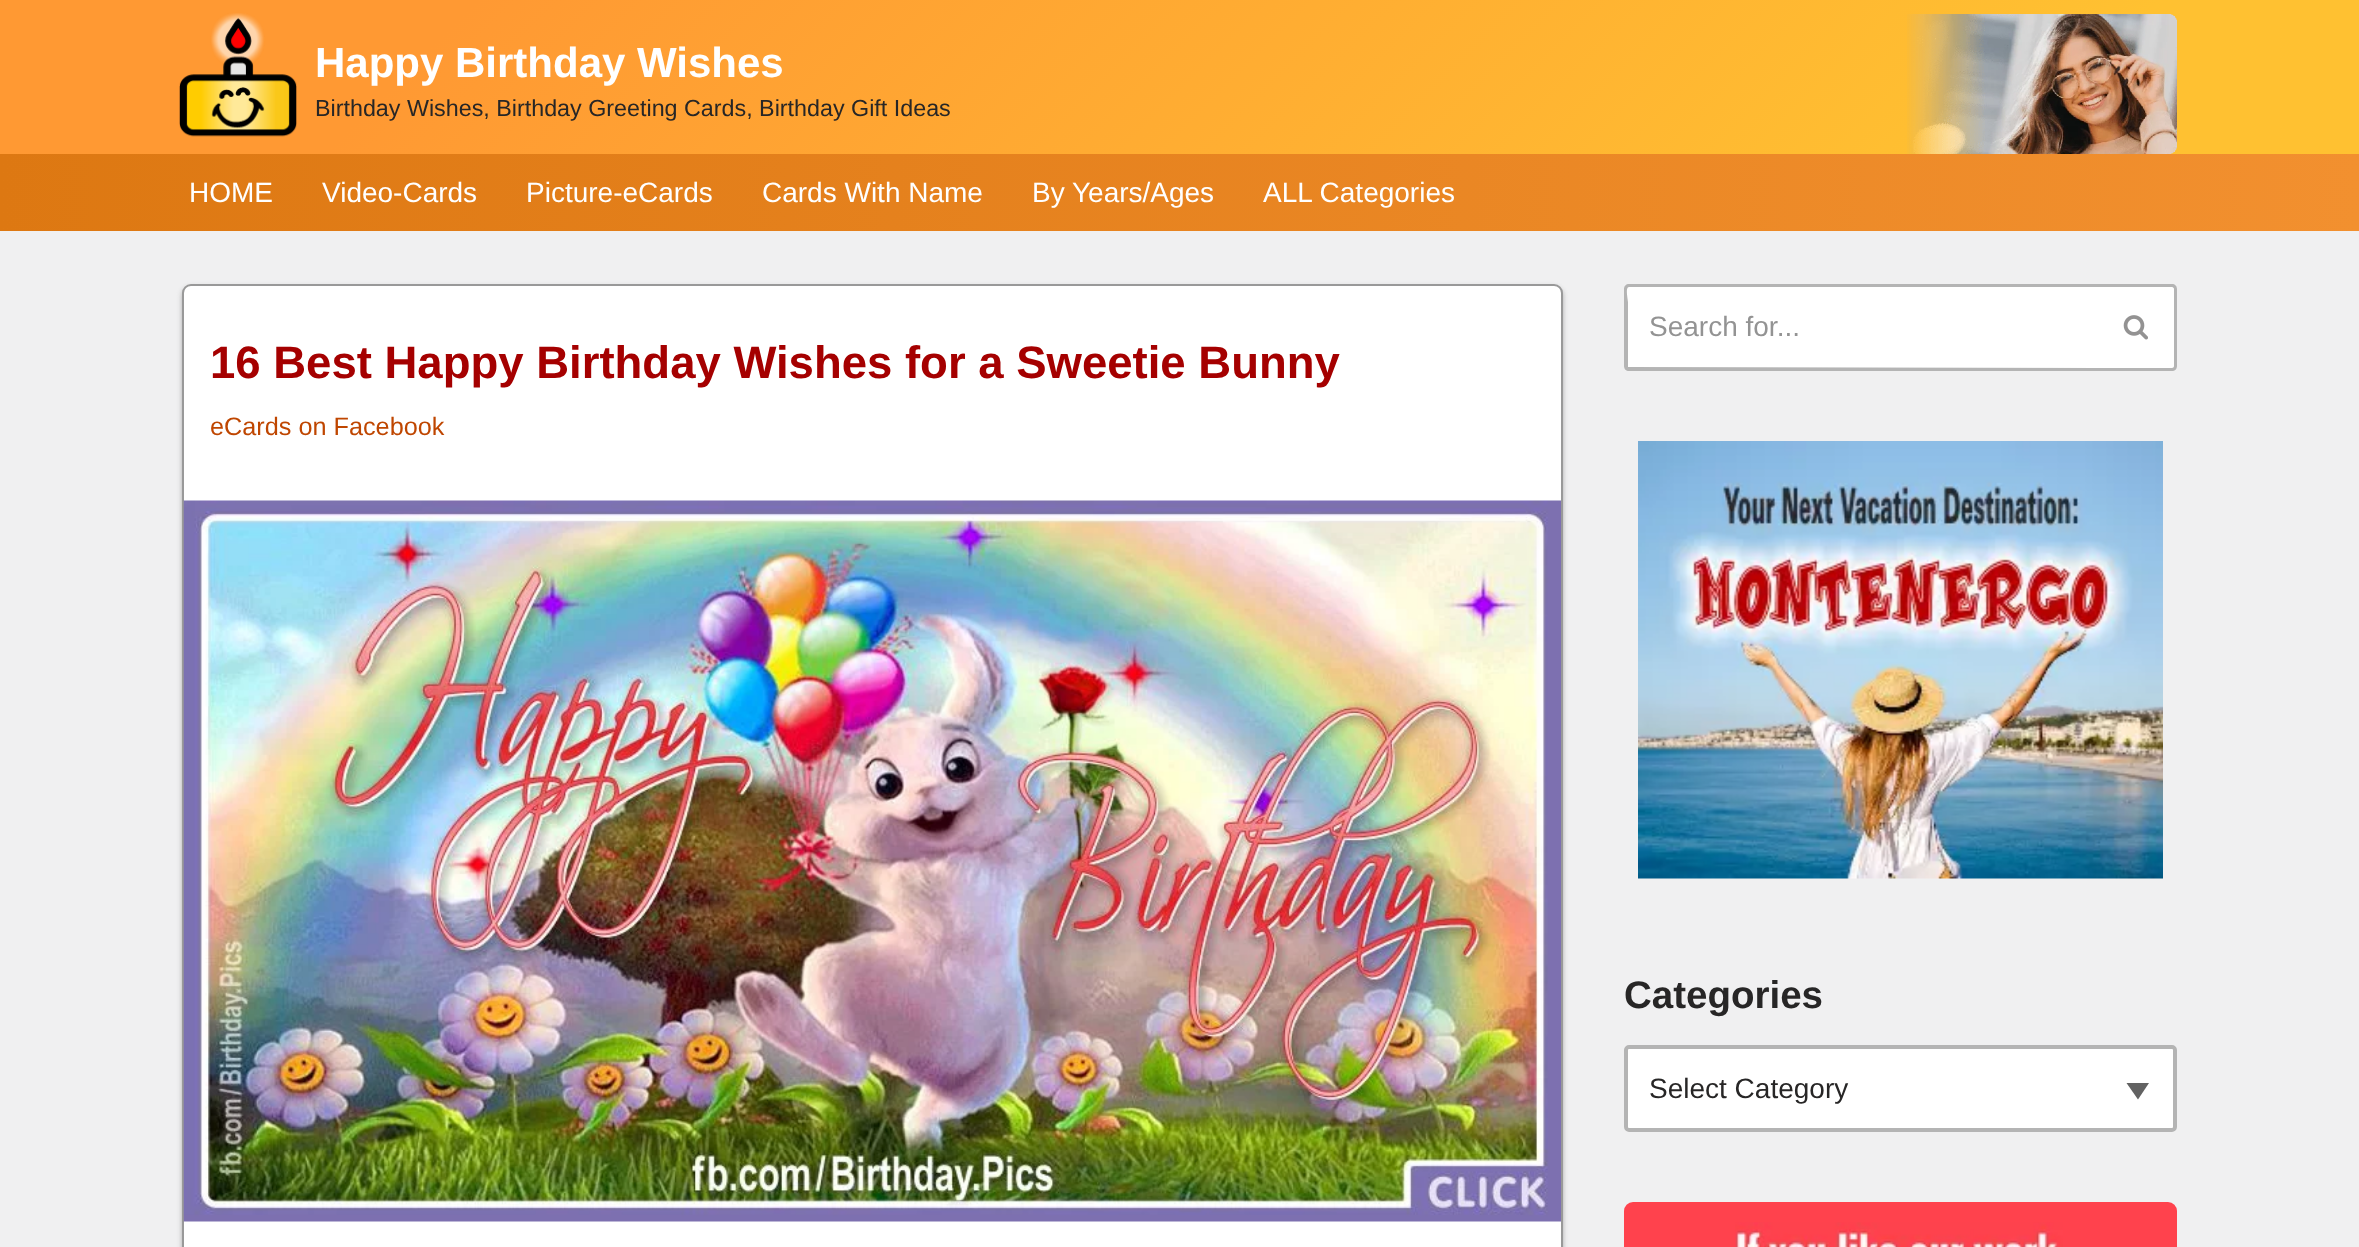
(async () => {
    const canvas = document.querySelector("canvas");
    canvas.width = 2359;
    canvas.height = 1247;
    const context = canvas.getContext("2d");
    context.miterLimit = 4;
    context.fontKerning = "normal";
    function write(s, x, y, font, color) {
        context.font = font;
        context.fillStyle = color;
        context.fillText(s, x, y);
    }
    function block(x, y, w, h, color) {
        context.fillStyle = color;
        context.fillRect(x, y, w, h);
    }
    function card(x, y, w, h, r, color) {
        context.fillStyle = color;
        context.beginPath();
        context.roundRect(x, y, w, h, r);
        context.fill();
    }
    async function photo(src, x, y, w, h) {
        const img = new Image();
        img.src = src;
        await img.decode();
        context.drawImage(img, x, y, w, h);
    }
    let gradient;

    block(0, 0, 2359, 1247, "rgb(240, 240, 241)");
    gradient = context.createLinearGradient(551, -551, 1808, 705);
    gradient.addColorStop(0.19, "rgb(255, 153, 51)");
    gradient.addColorStop(0.86, "rgb(255, 193, 49)");
    context.fillStyle = gradient;
    context.fillRect(0, 0, 2359, 154);
    await photo("media/1.png", 179, 13, 118, 124);
    write("Happy Birthday Wishes", 315, 77, "bold 42px Liberation Sans", "rgb(255, 255, 255)");
    write("Birthday Wishes, Birthday Greeting Cards, Birthday Gift Ideas", 315, 116, "23.3px Liberation Sans", "rgb(39, 38, 38)");
    await photo("media/2.png", 1907, 14, 270, 140);
    gradient = context.createLinearGradient(-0.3, 172, 2359, 213);
    gradient.addColorStop(0, "rgb(221, 120, 18)");
    gradient.addColorStop(1, "rgb(242, 144, 47)");
    context.fillStyle = gradient;
    context.fillRect(0, 154, 2359, 77);
    write("HOME", 189, 202, "28px Liberation Sans", "rgb(255, 255, 255)");
    write("Video-Cards", 322, 202, "28px Liberation Sans", "rgb(255, 255, 255)");
    write("Picture-eCards", 526, 202, "28px Liberation Sans", "rgb(255, 255, 255)");
    write("Cards With Name", 762, 202, "28px Liberation Sans", "rgb(255, 255, 255)");
    write("By Years/Ages", 1032, 202, "28px Liberation Sans", "rgb(255, 255, 255)");
    write("ALL Categories", 1263, 202, "28px Liberation Sans", "rgb(255, 255, 255)");
    context.fillStyle = "rgb(170, 170, 170)";
    context.filter = "blur(2.5px)";
    context.beginPath();
    context.roundRect(182, 287, 1381, 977, 9);
    context.fill();
    context.filter = "none";
    context.fillStyle = "rgb(255, 255, 255)";
    context.beginPath();
    context.roundRect(183, 285, 1379, 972, 8);
    context.fill();
    context.strokeStyle = "rgb(153, 153, 153)";
    context.lineWidth = 2;
    context.stroke();
    write("16 Best Happy Birthday Wishes for a Sweetie Bunny", 210, 378, "bold 45.5px Liberation Sans", "rgb(165, 0, 0)");
    write("eCards on Facebook", 210, 435, "25.25px Liberation Sans", "rgb(191, 70, 0)");
    await photo("media/3.png", 183, 500, 1378, 722);
    context.fillStyle = "rgb(255, 255, 255)";
    context.beginPath();
    context.roundRect(1624, 284, 474, 87, [5, 0, 0, 5]);
    context.fill();
    context.fillStyle = "rgb(180, 180, 180)";
    context.beginPath();
    context.moveTo(1629, 284);
    context.lineTo(2098, 284);
    context.lineTo(2098, 371);
    context.lineTo(1629, 371);
    context.bezierCurveTo(1626, 371, 1624, 369, 1624, 366);
    context.lineTo(1624, 289);
    context.bezierCurveTo(1624, 286, 1626, 284, 1629, 284);
    context.closePath();
    context.moveTo(1629, 287);
    context.lineTo(2098, 287);
    context.lineTo(2098, 368);
    context.lineTo(1629, 367);
    context.lineTo(1628, 367);
    context.lineTo(1628, 302);
    context.bezierCurveTo(1628, 299, 1625, 287, 1629, 287);
    context.closePath();
    context.fill("evenodd");
    write("Search for...", 1649, 336, "28px Liberation Sans", "rgb(147, 147, 147)");
    context.fillStyle = "rgb(255, 255, 255)";
    context.beginPath();
    context.roundRect(2098, 284, 79, 87, [0, 5, 5, 0]);
    context.fill();
    context.fillStyle = "rgb(180, 180, 180)";
    context.beginPath();
    context.moveTo(2098, 284);
    context.lineTo(2172, 284);
    context.bezierCurveTo(2175, 284, 2177, 286, 2177, 289);
    context.lineTo(2177, 366);
    context.bezierCurveTo(2177, 369, 2175, 371, 2172, 371);
    context.lineTo(2098, 371);
    context.closePath();
    context.moveTo(2098, 287);
    context.lineTo(2172, 287);
    context.bezierCurveTo(2173, 287, 2174, 288, 2174, 289);
    context.lineTo(2174, 366);
    context.bezierCurveTo(2174, 367, 2173, 368, 2172, 368);
    context.lineTo(2098, 368);
    context.closePath();
    context.fill("evenodd");
    await photo("media/4.png", 2123, 315, 25, 25);
    await photo("media/5.png", 1638, 441, 525, 438);
    write("Categories", 1624, 1008, "bold 38.5px Liberation Sans", "rgb(39, 38, 38)");
    card(1624, 1045, 553, 87, 5, "rgb(255, 255, 255)");
    context.fillStyle = "rgb(98, 98, 98)";
    context.beginPath();
    context.moveTo(2149, 1083);
    context.lineTo(2138, 1099.5);
    context.lineTo(2126.5, 1083);
    context.closePath();
    context.fill();
    context.beginPath();
    context.roundRect(1626, 1047, 549, 83, 3);
    context.strokeStyle = "rgb(180, 180, 180)";
    context.lineWidth = 4;
    context.stroke();
    write("Select Category", 1649, 1098, "28px Liberation Sans", "rgb(39, 38, 38)");
    card(1624, 1202, 553, 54, 9, "rgb(255, 66, 77)");
    await photo("media/6.png", 1735, 1222, 328, 25);
})();
